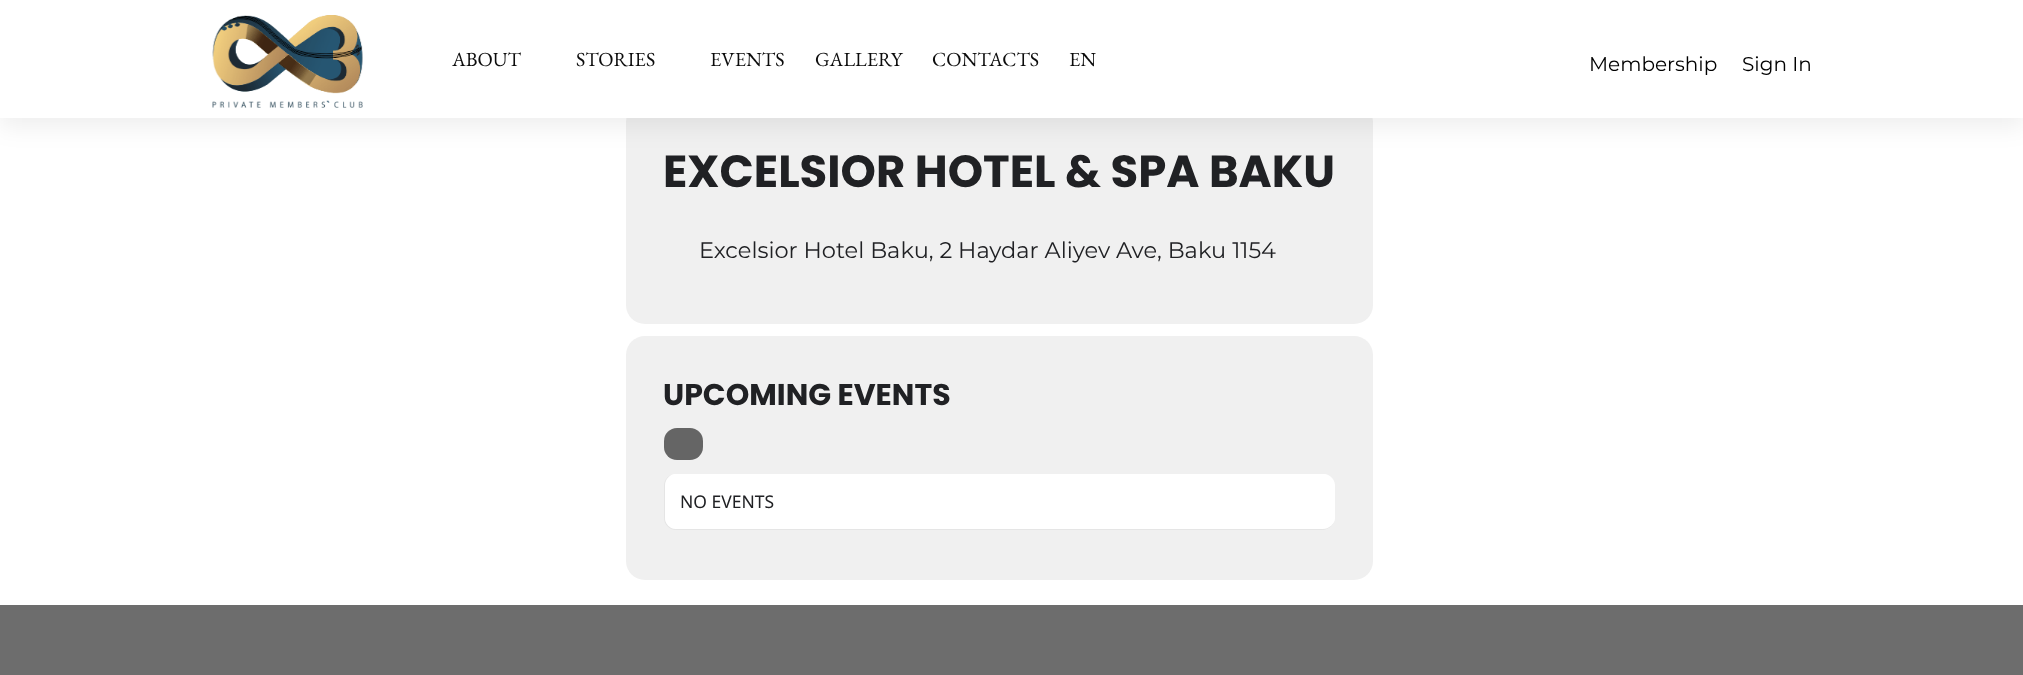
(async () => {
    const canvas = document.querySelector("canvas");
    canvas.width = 2023;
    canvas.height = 675;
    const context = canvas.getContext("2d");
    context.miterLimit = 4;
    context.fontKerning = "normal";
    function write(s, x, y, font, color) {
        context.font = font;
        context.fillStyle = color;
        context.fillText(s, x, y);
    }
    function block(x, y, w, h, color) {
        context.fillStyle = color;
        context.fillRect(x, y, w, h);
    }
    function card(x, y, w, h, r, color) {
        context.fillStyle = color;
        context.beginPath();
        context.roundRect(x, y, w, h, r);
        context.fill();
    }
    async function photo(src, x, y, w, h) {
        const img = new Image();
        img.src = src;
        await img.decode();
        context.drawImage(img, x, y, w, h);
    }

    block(0, 0, 2023, 675, "rgb(255, 255, 255)");
    card(626, 103, 747, 221, 19, "rgb(240, 240, 240)");
    context.fillStyle = "rgba(0, 0, 0, 0.07)";
    context.filter = "blur(12px)";
    context.beginPath();
    context.rect(0, 9, 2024, 117);
    context.fill();
    context.filter = "none";
    block(0, 0, 2023, 118, "rgb(255, 255, 255)");
    await photo("media/1.png", 212, 15, 151, 93);
    write("ABOUT", 452, 66, "20px EB Garamond", "rgb(12, 12, 12)");
    write("STORIES", 576, 66, "20px EB Garamond", "rgb(12, 12, 12)");
    write("EVENTS", 710, 66, "20px EB Garamond", "rgb(12, 12, 12)");
    write("GALLERY", 815, 66, "20px EB Garamond", "rgb(12, 12, 12)");
    write("CONTACTS", 932, 66, "20px EB Garamond", "rgb(12, 12, 12)");
    write("EN", 1069, 66, "20px EB Garamond", "rgb(12, 12, 12)");
    write("Membership", 1589, 71, "20px Montserrat", "rgb(0, 0, 0)");
    write("Sign In", 1742, 71, "20px Montserrat", "rgb(0, 0, 0)");
    write("EXCELSIOR HOTEL & SPA BAKU", 663, 187, "bold 45px Poppins", "rgb(32, 33, 36)");
    write("Excelsior Hotel Baku, 2 Haydar Aliyev Ave, Baku 1154", 699, 258, "22.5px Montserrat", "rgb(32, 33, 36)");
    card(626, 336, 747, 244, 19, "rgb(240, 240, 240)");
    write("UPCOMING EVENTS", 663, 405, "bold 30px Poppins", "rgb(32, 33, 36)");
    card(664, 428, 39, 32, 13, "rgb(101, 101, 101)");
    context.fillStyle = "rgb(229, 229, 229)";
    context.beginPath();
    context.moveTo(676, 474);
    context.lineTo(1322, 474);
    context.bezierCurveTo(1329, 474, 1335, 479, 1335, 486);
    context.lineTo(1335, 518);
    context.bezierCurveTo(1335, 524, 1329, 530, 1322, 530);
    context.lineTo(676, 530);
    context.bezierCurveTo(669, 530, 664, 524, 664, 518);
    context.lineTo(664, 486);
    context.bezierCurveTo(664, 479, 669, 474, 676, 474);
    context.closePath();
    context.moveTo(676, 474);
    context.lineTo(1322, 474);
    context.bezierCurveTo(1329, 474, 1335, 479, 1335, 486);
    context.lineTo(1335, 518);
    context.bezierCurveTo(1335, 524, 1329, 529, 1322, 529);
    context.lineTo(676, 529);
    context.bezierCurveTo(670, 529, 665, 524, 665, 518);
    context.lineTo(665, 486);
    context.bezierCurveTo(665, 479, 670, 474, 676, 474);
    context.closePath();
    context.fill("evenodd");
    context.fillStyle = "rgb(255, 255, 255)";
    context.beginPath();
    context.moveTo(674, 474);
    context.bezierCurveTo(669, 475, 665, 480, 665, 486);
    context.lineTo(665, 518);
    context.bezierCurveTo(665, 524, 670, 529, 676, 529);
    context.lineTo(1322, 529);
    context.bezierCurveTo(1329, 529, 1335, 524, 1335, 518);
    context.lineTo(1335, 486);
    context.bezierCurveTo(1335, 480, 1331, 475, 1325, 474);
    context.closePath();
    context.fill();
    write("NO EVENTS", 680, 508, "17.5px Noto Sans", "rgb(32, 33, 36)");
    block(0, 605, 2023, 70, "rgb(109, 109, 109)");
})();
